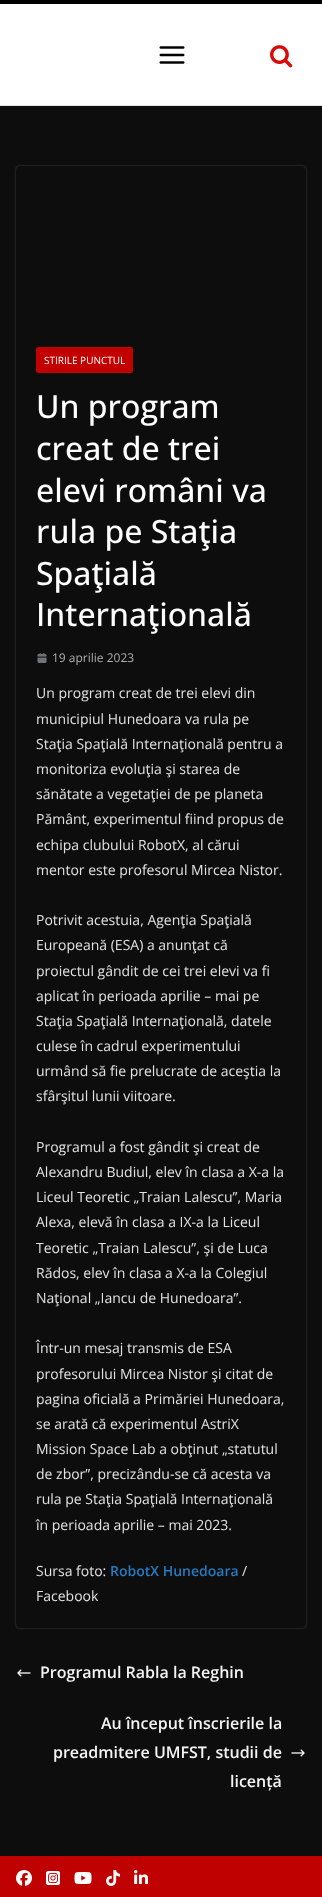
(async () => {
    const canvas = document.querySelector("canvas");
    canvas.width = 322;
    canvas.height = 1897;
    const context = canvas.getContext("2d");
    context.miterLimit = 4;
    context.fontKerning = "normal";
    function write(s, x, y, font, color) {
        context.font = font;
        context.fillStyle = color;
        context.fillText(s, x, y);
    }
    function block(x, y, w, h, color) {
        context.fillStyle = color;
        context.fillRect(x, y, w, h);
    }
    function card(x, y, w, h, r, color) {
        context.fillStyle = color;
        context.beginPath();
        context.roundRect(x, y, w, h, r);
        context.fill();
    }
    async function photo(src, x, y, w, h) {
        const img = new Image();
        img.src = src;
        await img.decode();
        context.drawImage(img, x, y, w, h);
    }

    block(0, 0, 322, 1897, "rgb(13, 13, 13)");
    block(0, 4, 322, 101, "rgb(255, 255, 255)");
    block(0, 105, 322, 1, "rgb(228, 228, 231)");
    block(0, 0, 322, 4, "rgb(0, 0, 0)");
    await photo("media/1.png", 159, 46, 26, 18);
    await photo("media/2.png", 270, 45, 23, 23);
    context.save();
    context.beginPath();
    context.moveTo(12, 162);
    context.lineTo(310, 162);
    context.lineTo(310, 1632);
    context.lineTo(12, 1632);
    context.closePath();
    context.moveTo(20, 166);
    context.lineTo(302, 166);
    context.bezierCurveTo(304, 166, 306, 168, 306, 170);
    context.lineTo(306, 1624);
    context.bezierCurveTo(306, 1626, 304, 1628, 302, 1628);
    context.lineTo(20, 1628);
    context.bezierCurveTo(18, 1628, 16, 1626, 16, 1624);
    context.lineTo(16, 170);
    context.bezierCurveTo(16, 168, 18, 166, 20, 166);
    context.closePath();
    context.clip("evenodd");
    context.fillStyle = "rgba(255, 255, 255, 0.24)";
    context.filter = "blur(1px)";
    context.beginPath();
    context.roundRect(16, 166, 290, 1462, 4);
    context.fill();
    context.filter = "none";
    context.restore();
    card(36, 347, 97, 26, 2, "rgb(195, 0, 0)");
    write("STIRILE PUNCTUL", 44, 364, "10px Open Sans", "rgb(255, 255, 255)");
    write("Un program", 36, 418, "500 32px Open Sans", "rgb(255, 255, 255)");
    write("creat de trei", 36, 460, "500 32px Open Sans", "rgb(255, 255, 255)");
    write("elevi români va", 36, 502, "500 32px Open Sans", "rgb(255, 255, 255)");
    write("rula pe Staţia", 36, 543, "500 32px Open Sans", "rgb(255, 255, 255)");
    write("Spaţială", 36, 585, "500 32px Open Sans", "rgb(255, 255, 255)");
    write("Internaţională", 36, 626, "500 32px Open Sans", "rgb(255, 255, 255)");
    await photo("media/3.png", 37, 653, 10, 10);
    write("19 aprilie 2023", 52, 662, "12px Open Sans", "rgb(174, 174, 174)");
    write("Un program creat de trei elevi din", 36, 698, "14px Open Sans", "rgb(227, 226, 226)");
    write("municipiul Hunedoara va rula pe", 36, 724, "14px Open Sans", "rgb(227, 226, 226)");
    write("Staţia Spaţială Internaţională pentru a", 36, 749, "14px Open Sans", "rgb(227, 226, 226)");
    write("monitoriza evoluţia şi starea de", 36, 774, "14px Open Sans", "rgb(227, 226, 226)");
    write("sănătate a vegetaţiei de pe planeta", 36, 799, "14px Open Sans", "rgb(227, 226, 226)");
    write("Pământ, experimentul fiind propus de", 36, 824, "14px Open Sans", "rgb(227, 226, 226)");
    write("echipa clubului RobotX, al cărui", 36, 850, "14px Open Sans", "rgb(227, 226, 226)");
    write("mentor este profesorul Mircea Nistor.", 36, 875, "14px Open Sans", "rgb(227, 226, 226)");
    write("Potrivit acestuia, Agenţia Spaţială", 36, 925, "14px Open Sans", "rgb(227, 226, 226)");
    write("Europeană (ESA) a anunţat că", 36, 950, "14px Open Sans", "rgb(227, 226, 226)");
    write("proiectul gândit de cei trei elevi va fi", 36, 976, "14px Open Sans", "rgb(227, 226, 226)");
    write("aplicat în perioada aprilie – mai pe", 36, 1001, "14px Open Sans", "rgb(227, 226, 226)");
    write("Staţia Spaţială Internaţională, datele", 36, 1026, "14px Open Sans", "rgb(227, 226, 226)");
    write("culese în cadrul experimentului", 36, 1051, "14px Open Sans", "rgb(227, 226, 226)");
    write("urmând să fie prelucrate de aceştia la", 36, 1076, "14px Open Sans", "rgb(227, 226, 226)");
    write("sfârşitul lunii viitoare.", 36, 1101, "14px Open Sans", "rgb(227, 226, 226)");
    write("Programul a fost gândit şi creat de", 36, 1152, "14px Open Sans", "rgb(227, 226, 226)");
    write("Alexandru Budiul, elev în clasa a X-a la", 36, 1177, "14px Open Sans", "rgb(227, 226, 226)");
    write("Liceul Teoretic „Traian Lalescu”, Maria", 36, 1202, "14px Open Sans", "rgb(227, 226, 226)");
    write("Alexa, elevă în clasa a IX-a la Liceul", 36, 1227, "14px Open Sans", "rgb(227, 226, 226)");
    write("Teoretic „Traian Lalescu”, şi de Luca", 36, 1253, "14px Open Sans", "rgb(227, 226, 226)");
    write("Rădos, elev în clasa a X-a la Colegiul", 36, 1278, "14px Open Sans", "rgb(227, 226, 226)");
    write("Naţional „Iancu de Hunedoara”.", 36, 1303, "14px Open Sans", "rgb(227, 226, 226)");
    write("Într-un mesaj transmis de ESA", 36, 1353, "14px Open Sans", "rgb(227, 226, 226)");
    write("profesorului Mircea Nistor şi citat de", 36, 1379, "14px Open Sans", "rgb(227, 226, 226)");
    write("pagina oficială a Primăriei Hunedoara,", 36, 1404, "14px Open Sans", "rgb(227, 226, 226)");
    write("se arată că experimentul AstriX", 36, 1429, "14px Open Sans", "rgb(227, 226, 226)");
    write("Mission Space Lab a obţinut „statutul", 36, 1454, "14px Open Sans", "rgb(227, 226, 226)");
    write("de zbor”, precizându-se că acesta va", 36, 1479, "14px Open Sans", "rgb(227, 226, 226)");
    write("rula pe Staţia Spaţială Internaţională", 36, 1504, "14px Open Sans", "rgb(227, 226, 226)");
    write("în perioada aprilie – mai 2023.", 36, 1530, "14px Open Sans", "rgb(227, 226, 226)");
    write("Sursa foto:", 36, 1576, "14px Open Sans", "rgb(227, 226, 226)");
    write("RobotX Hunedoara", 110, 1576, "600 14px Open Sans", "rgb(37, 123, 193)");
    write("/", 242, 1576, "14px Open Sans", "rgb(227, 226, 226)");
    write("Facebook", 36, 1601, "14px Open Sans", "rgb(227, 226, 226)");
    await photo("media/4.png", 17, 1669, 14, 8);
    write("Programul Rabla la Reghin", 40, 1678, "600 16px Open Sans", "rgb(244, 244, 245)");
    write("Au început înscrierile la", 101, 1729, "600 16px Open Sans", "rgb(244, 244, 245)");
    write("preadmitere UMFST, studii de", 53, 1758, "600 16px Open Sans", "rgb(244, 244, 245)");
    await photo("media/5.png", 291, 1749, 14, 8);
    write("licență", 230, 1787, "600 16px Open Sans", "rgb(244, 244, 245)");
    block(0, 1856, 322, 41, "rgb(192, 1, 1)");
    await photo("media/6.png", 16, 1870, 16, 16);
    await photo("media/7.png", 46, 1871, 14, 14);
    await photo("media/8.png", 74, 1872, 18, 12);
    await photo("media/9.png", 106, 1870, 14, 16);
    await photo("media/10.png", 134, 1870, 14, 14);
})();
